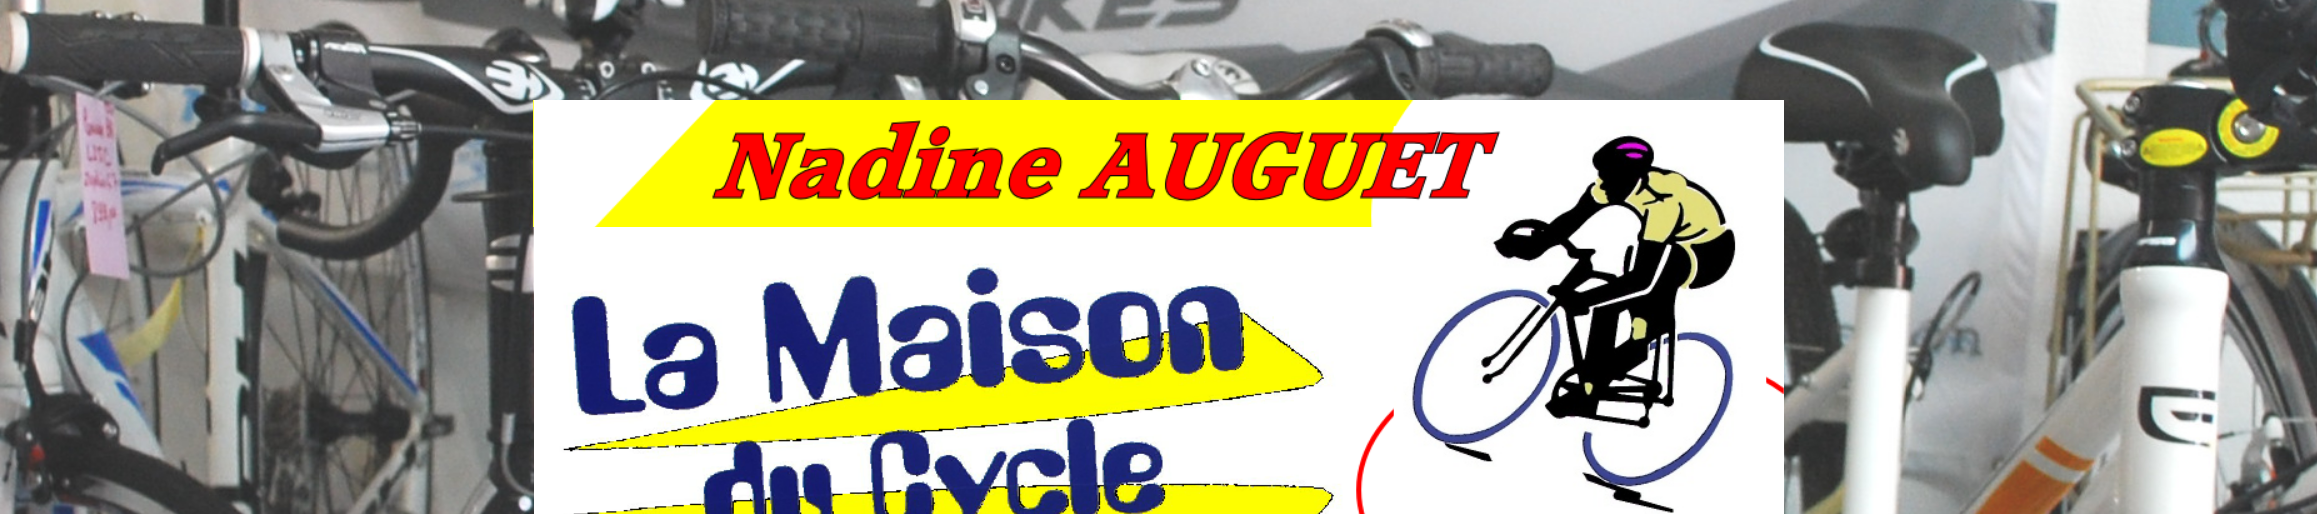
(async () => {
    const canvas = document.querySelector("canvas");
    canvas.width = 2317;
    canvas.height = 514;
    const context = canvas.getContext("2d");
    context.miterLimit = 4;
    context.fontKerning = "normal";
    function block(x, y, w, h, color) {
        context.fillStyle = color;
        context.fillRect(x, y, w, h);
    }
    async function photo(src, x, y, w, h) {
        const img = new Image();
        img.src = src;
        await img.decode();
        context.drawImage(img, x, y, w, h);
    }

    block(0, 0, 2317, 514, "rgb(255, 255, 255)");
    await photo("media/1.png", 0, 0, 2317, 514);
    block(534, 100, 1250, 414, "rgb(255, 255, 255)");
    block(533, 100, 881, 127, "rgb(255, 255, 0)");
    await photo("media/6.png", 533, 263, 810, 251);
    await photo("media/2.png", 533, 100, 184, 192);
    await photo("media/3.png", 1371, 100, 89, 127);
    await photo("media/7.png", 1356, 376, 428, 138);
    await photo("media/5.png", 1393, 126, 374, 388);
    await photo("media/4.png", 712, 120, 789, 82);
})();
